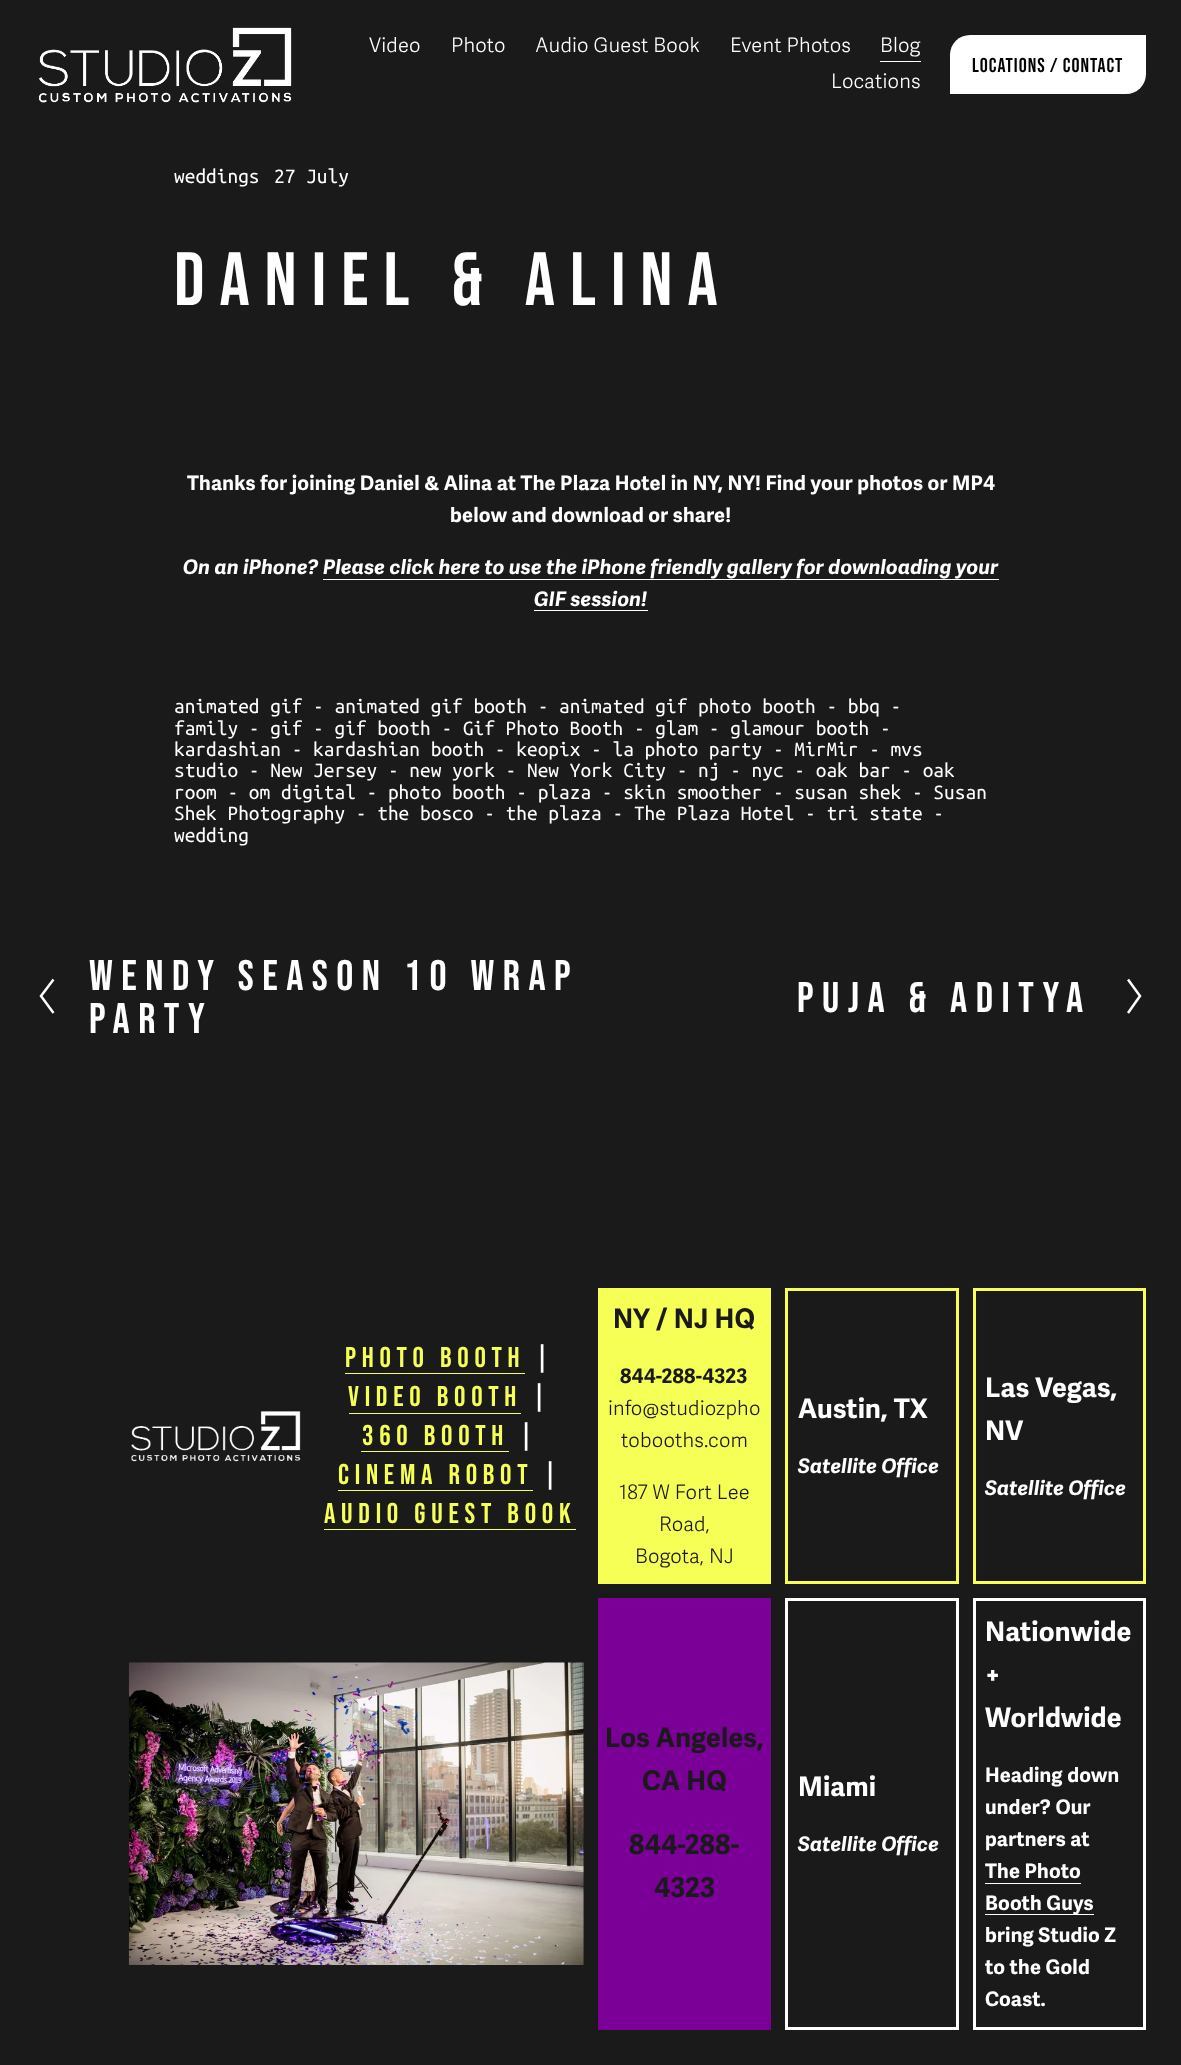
(async () => {
    const canvas = document.querySelector("canvas");
    canvas.width = 1181;
    canvas.height = 2065;
    const context = canvas.getContext("2d");
    context.miterLimit = 4;
    context.fontKerning = "normal";
    function write(s, x, y, font, color) {
        context.font = font;
        context.fillStyle = color;
        context.fillText(s, x, y);
    }
    function block(x, y, w, h, color) {
        context.fillStyle = color;
        context.fillRect(x, y, w, h);
    }
    async function photo(src, x, y, w, h) {
        const img = new Image();
        img.src = src;
        await img.decode();
        context.drawImage(img, x, y, w, h);
    }

    block(0, 0, 1181, 2065, "rgb(26, 26, 26)");
    await photo("media/1.png", 38, 27, 254, 76);
    context.letterSpacing = "0.2px";
    write("Video", 369, 52, "300 20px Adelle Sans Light", "rgb(255, 255, 255)");
    write("Photo", 451, 52, "300 20px Adelle Sans Light", "rgb(255, 255, 255)");
    write("Audio Guest Book", 535, 52, "300 20px Adelle Sans Light", "rgb(255, 255, 255)");
    write("Event Photos", 730, 52, "300 20px Adelle Sans Light", "rgb(255, 255, 255)");
    block(880, 61, 41, 1, "rgb(255, 255, 255)");
    write("Blog", 880, 52, "300 20px Adelle Sans Light", "rgb(255, 255, 255)");
    write("Locations", 831, 88, "300 20px Adelle Sans Light", "rgb(255, 255, 255)");
    context.beginPath();
    context.roundRect(950, 35, 196, 59, [20, 0, 20, 0]);
    context.fill();
    context.letterSpacing = "1px";
    write("Locations / Contact", 972, 72, "20px Bebas Neue", "rgb(0, 0, 0)");
    context.letterSpacing = "0px";
    write("weddings", 174, 183, "21.4px Ubuntu Mono", "rgb(255, 255, 255)");
    write("27 July", 274, 183, "21.4px Ubuntu Mono", "rgb(255, 255, 255)");
    context.letterSpacing = "15px";
    write("DANIEL & ALINA", 174, 305, "75.25px Bebas Neue", "rgb(255, 255, 255)");
    context.letterSpacing = "0.2px";
    write("Thanks for joining Daniel & Alina at The Plaza Hotel in NY, NY! Find your photos or MP4", 187, 490, "bold 20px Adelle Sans", "rgb(255, 255, 255)");
    write("below and download or share!", 450, 522, "bold 20px Adelle Sans", "rgb(255, 255, 255)");
    write("On an iPhone? Please click here to use the iPhone friendly gallery for downloading your", 183, 574, "italic bold 20px Adelle Sans", "rgb(255, 255, 255)");
    block(323, 579, 676, 1, "rgb(255, 255, 255)");
    write("GIF session!", 534, 606, "italic bold 20px Adelle Sans", "rgb(255, 255, 255)");
    block(534, 610, 114, 1, "rgb(255, 255, 255)");
    context.letterSpacing = "0px";
    write("animated gif - animated gif booth - animated gif photo booth - bbq -", 174, 713, "21.4px Ubuntu Mono", "rgb(255, 255, 255)");
    write("family - gif - gif booth - Gif Photo Booth - glam - glamour booth -", 174, 735, "21.4px Ubuntu Mono", "rgb(255, 255, 255)");
    write("kardashian - kardashian booth - keopix - la photo party - MirMir - mvs", 174, 756, "21.4px Ubuntu Mono", "rgb(255, 255, 255)");
    write("studio - New Jersey - new york - New York City - nj - nyc - oak bar - oak", 174, 777, "21.4px Ubuntu Mono", "rgb(255, 255, 255)");
    write("room - om digital - photo booth - plaza - skin smoother - susan shek - Susan", 174, 799, "21.4px Ubuntu Mono", "rgb(255, 255, 255)");
    write("Shek Photography - the bosco - the plaza - The Plaza Hotel - tri state -", 174, 820, "21.4px Ubuntu Mono", "rgb(255, 255, 255)");
    write("wedding", 174, 842, "21.4px Ubuntu Mono", "rgb(255, 255, 255)");
    context.beginPath();
    context.moveTo(53.5, 1013);
    context.lineTo(41, 996);
    context.lineTo(53.5, 979.5);
    context.strokeStyle = "rgb(255, 255, 255)";
    context.lineWidth = 2.5;
    context.stroke();
    context.letterSpacing = "8.5px";
    write("WENDY SEASON 10 WRAP", 89, 990, "42.75px Bebas Neue", "rgb(255, 255, 255)");
    write("PARTY", 89, 1033, "42.75px Bebas Neue", "rgb(255, 255, 255)");
    write("PUJA & ADITYA", 797, 1012, "42.75px Bebas Neue", "rgb(255, 255, 255)");
    context.beginPath();
    context.moveTo(1128, 979.5);
    context.lineTo(1140, 996);
    context.lineTo(1128, 1013);
    context.stroke();
    await photo("media/2.png", 131, 1411, 170, 51);
    context.letterSpacing = "5.75px";
    write("PHOTO BOOTH", 345, 1367, "28.5px Bebas Neue", "rgb(246, 255, 85)");
    block(345, 1373, 180, 1, "rgb(246, 255, 85)");
    write("|", 535, 1367, "28.5px Bebas Neue", "rgb(255, 255, 255)");
    write("VIDEO BOOTH", 348, 1406, "28.5px Bebas Neue", "rgb(246, 255, 85)");
    block(349, 1413, 172, 1, "rgb(246, 255, 85)");
    write("|", 532, 1406, "28.5px Bebas Neue", "rgb(255, 255, 255)");
    write("360 BOOTH", 362, 1445, "28.5px Bebas Neue", "rgb(246, 255, 85)");
    block(361, 1451, 148, 1, "rgb(246, 255, 85)");
    write("|", 519, 1445, "28.5px Bebas Neue", "rgb(255, 255, 255)");
    write("CINEMA ROBOT", 338, 1484, "28.5px Bebas Neue", "rgb(246, 255, 85)");
    block(338, 1490, 195, 1, "rgb(246, 255, 85)");
    write("|", 543, 1484, "28.5px Bebas Neue", "rgb(255, 255, 255)");
    write("AUDIO GUEST BOOK", 324, 1523, "28.5px Bebas Neue", "rgb(246, 255, 85)");
    block(324, 1529, 252, 1, "rgb(246, 255, 85)");
    block(598, 1288, 173, 296, "rgb(246, 255, 85)");
    context.letterSpacing = "0.2px";
    write("NY / NJ HQ", 613, 1328, "bold 27px Adelle Sans", "rgb(26, 26, 26)");
    write("844-288-4323", 620, 1383, "bold 20px Adelle Sans", "rgb(26, 26, 26)");
    write("info@studiozpho", 608, 1415, "300 20px Adelle Sans Light", "rgb(26, 26, 26)");
    write("tobooths.com", 621, 1447, "300 20px Adelle Sans Light", "rgb(26, 26, 26)");
    write("187 W Fort Lee", 619, 1499, "300 20px Adelle Sans Light", "rgb(26, 26, 26)");
    write("Road,", 659, 1531, "300 20px Adelle Sans Light", "rgb(26, 26, 26)");
    write("Bogota, NJ", 635, 1563, "300 20px Adelle Sans Light", "rgb(26, 26, 26)");
    context.strokeStyle = "rgb(246, 255, 85)";
    context.lineWidth = 3;
    context.strokeRect(786.5, 1289.5, 171, 293);
    write("Austin, TX", 798, 1418, "bold 27px Adelle Sans", "rgb(255, 255, 255)");
    write("Satellite Office", 798, 1473, "italic bold 20px Adelle Sans", "rgb(255, 255, 255)");
    context.strokeRect(974.5, 1289.5, 170, 293);
    write("Las Vegas,", 985, 1397, "bold 27px Adelle Sans", "rgb(255, 255, 255)");
    write("NV", 985, 1440, "bold 27px Adelle Sans", "rgb(255, 255, 255)");
    write("Satellite Office", 985, 1495, "italic bold 20px Adelle Sans", "rgb(255, 255, 255)");
    await photo("media/3.png", 128, 1662, 456, 303);
    block(598, 1598, 173, 432, "rgb(122, 0, 151)");
    write("Los Angeles,", 605, 1747, "bold 27px Adelle Sans", "rgb(26, 26, 26)");
    write("CA HQ", 642, 1790, "bold 27px Adelle Sans", "rgb(26, 26, 26)");
    write("844-288-", 629, 1854, "bold 27px Adelle Sans", "rgb(26, 26, 26)");
    write("4323", 654, 1897, "bold 27px Adelle Sans", "rgb(26, 26, 26)");
    context.strokeStyle = "rgb(255, 255, 255)";
    context.strokeRect(786.5, 1599.5, 171, 429);
    write("Miami", 798, 1796, "bold 27px Adelle Sans", "rgb(255, 255, 255)");
    write("Satellite Office", 798, 1851, "italic bold 20px Adelle Sans", "rgb(255, 255, 255)");
    context.strokeRect(974.5, 1599.5, 170, 429);
    write("Nationwide", 985, 1641, "bold 27px Adelle Sans", "rgb(255, 255, 255)");
    write("+", 985, 1684, "bold 27px Adelle Sans", "rgb(255, 255, 255)");
    write("Worldwide", 985, 1727, "bold 27px Adelle Sans", "rgb(255, 255, 255)");
    write("Heading down", 985, 1782, "bold 20px Adelle Sans", "rgb(255, 255, 255)");
    write("under? Our", 985, 1814, "bold 20px Adelle Sans", "rgb(255, 255, 255)");
    write("partners at", 985, 1846, "bold 20px Adelle Sans", "rgb(255, 255, 255)");
    write("The Photo", 985, 1878, "bold 20px Adelle Sans", "rgb(255, 255, 255)");
    block(985, 1883, 96, 1, "rgb(255, 255, 255)");
    block(985, 1914, 109, 1, "rgb(255, 255, 255)");
    write("Booth Guys", 985, 1910, "bold 20px Adelle Sans", "rgb(255, 255, 255)");
    write("bring Studio Z", 985, 1942, "bold 20px Adelle Sans", "rgb(255, 255, 255)");
    write("to the Gold", 985, 1974, "bold 20px Adelle Sans", "rgb(255, 255, 255)");
    write("Coast.", 985, 2006, "bold 20px Adelle Sans", "rgb(255, 255, 255)");
})();
